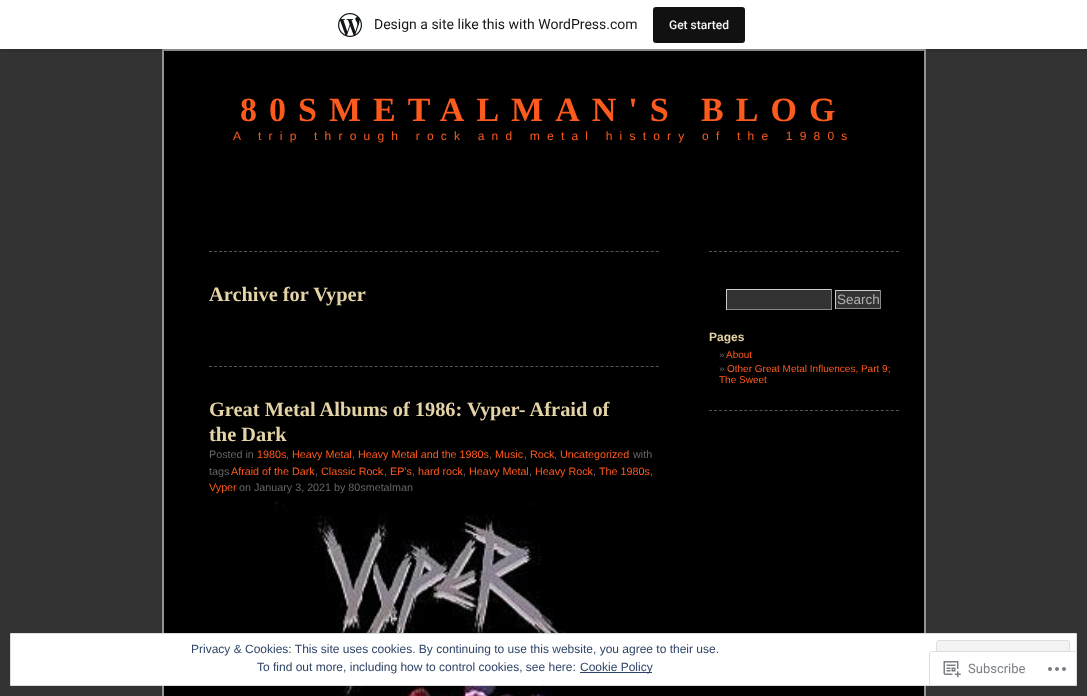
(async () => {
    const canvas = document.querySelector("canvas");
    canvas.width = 1087;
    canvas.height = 696;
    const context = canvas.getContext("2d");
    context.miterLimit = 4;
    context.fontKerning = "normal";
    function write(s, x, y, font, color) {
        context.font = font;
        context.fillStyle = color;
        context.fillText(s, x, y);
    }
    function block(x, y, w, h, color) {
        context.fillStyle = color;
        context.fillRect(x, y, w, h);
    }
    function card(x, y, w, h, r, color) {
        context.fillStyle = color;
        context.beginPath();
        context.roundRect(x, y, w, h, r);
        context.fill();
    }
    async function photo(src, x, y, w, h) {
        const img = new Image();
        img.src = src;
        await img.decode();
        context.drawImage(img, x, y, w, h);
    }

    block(0, 0, 1087, 696, "rgb(51, 51, 51)");
    context.fillStyle = "rgb(0, 0, 0)";
    context.beginPath();
    context.rect(163, 50, 762, 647);
    context.fill();
    context.strokeStyle = "rgb(149, 149, 150)";
    context.lineWidth = 2;
    context.stroke();
    context.fillStyle = "rgba(0, 0, 0, 0.08)";
    context.beginPath();
    context.moveTo(1, 49);
    context.lineTo(1, 52);
    context.lineTo(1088, 52);
    context.lineTo(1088, 3);
    context.lineTo(1087, 3);
    context.lineTo(1087, 49);
    context.closePath();
    context.fill();
    block(0, 0, 1087, 49, "rgb(255, 255, 255)");
    await photo("media/1.png", 338, 13, 24, 24);
    write("Design a site like this with WordPress.com", 374, 29, "14px Roboto", "rgb(23, 23, 23)");
    card(653, 7, 92, 36, 3, "rgb(17, 17, 17)");
    write("Get started", 669, 29, "500 12px Roboto", "rgb(246, 247, 247)");
    context.letterSpacing = "12px";
    write("80SMETALMAN'S BLOG", 240, 121, "bold 34px Liberation Serif", "rgb(253, 90, 30)");
    context.letterSpacing = "7.2px";
    write("A trip through rock and metal history of the 1980s", 233, 140, "12px Liberation Sans", "rgb(253, 90, 30)");
    context.beginPath();
    context.moveTo(209, 251.5);
    context.lineTo(659, 251.5);
    context.strokeStyle = "rgb(85, 85, 85)";
    context.lineWidth = 1;
    context.setLineDash([3, 2.02]);
    context.stroke();
    context.letterSpacing = "0px";
    write("Archive for Vyper", 209, 301, "bold 20.4px Liberation Serif", "rgb(228, 211, 166)");
    context.beginPath();
    context.moveTo(209, 366.5);
    context.lineTo(659, 366.5);
    context.stroke();
    write("Great Metal Albums of 1986: Vyper- Afraid of", 209, 416, "bold 20.4px Liberation Serif", "rgb(228, 211, 166)");
    write("the Dark", 209, 441, "bold 20.4px Liberation Serif", "rgb(228, 211, 166)");
    write("Posted in", 209, 458, "10.75px Liberation Sans", "rgb(102, 102, 102)");
    write("1980s", 257, 458, "10.75px Liberation Sans", "rgb(253, 90, 30)");
    write(",", 286, 458, "10.75px Liberation Sans", "rgb(102, 102, 102)");
    write("Heavy Metal", 292, 458, "10.75px Liberation Sans", "rgb(253, 90, 30)");
    write(",", 352, 458, "10.75px Liberation Sans", "rgb(102, 102, 102)");
    write("Heavy Metal and the 1980s", 358, 458, "10.75px Liberation Sans", "rgb(253, 90, 30)");
    write(",", 489, 458, "10.75px Liberation Sans", "rgb(102, 102, 102)");
    write("Music", 495, 458, "10.75px Liberation Sans", "rgb(253, 90, 30)");
    write(",", 524, 458, "10.75px Liberation Sans", "rgb(102, 102, 102)");
    write("Rock", 530, 458, "10.75px Liberation Sans", "rgb(253, 90, 30)");
    write(",", 554, 458, "10.75px Liberation Sans", "rgb(102, 102, 102)");
    write("Uncategorized", 560, 458, "10.75px Liberation Sans", "rgb(253, 90, 30)");
    write("with", 633, 458, "10.75px Liberation Sans", "rgb(102, 102, 102)");
    write("tags", 209, 475, "10.75px Liberation Sans", "rgb(102, 102, 102)");
    write("Afraid of the Dark", 231, 475, "10.75px Liberation Sans", "rgb(253, 90, 30)");
    write(",", 315, 475, "10.75px Liberation Sans", "rgb(102, 102, 102)");
    write("Classic Rock", 321, 475, "10.75px Liberation Sans", "rgb(253, 90, 30)");
    write(",", 384, 475, "10.75px Liberation Sans", "rgb(102, 102, 102)");
    write("EP's", 390, 475, "10.75px Liberation Sans", "rgb(253, 90, 30)");
    write(",", 412, 475, "10.75px Liberation Sans", "rgb(102, 102, 102)");
    write("hard rock", 418, 475, "10.75px Liberation Sans", "rgb(253, 90, 30)");
    write(",", 463, 475, "10.75px Liberation Sans", "rgb(102, 102, 102)");
    write("Heavy Metal", 469, 475, "10.75px Liberation Sans", "rgb(253, 90, 30)");
    write(",", 529, 475, "10.75px Liberation Sans", "rgb(102, 102, 102)");
    write("Heavy Rock", 535, 475, "10.75px Liberation Sans", "rgb(253, 90, 30)");
    write(",", 593, 475, "10.75px Liberation Sans", "rgb(102, 102, 102)");
    write("The 1980s", 599, 475, "10.75px Liberation Sans", "rgb(253, 90, 30)");
    write(",", 650, 475, "10.75px Liberation Sans", "rgb(102, 102, 102)");
    write("Vyper", 209, 491, "10.75px Liberation Sans", "rgb(253, 90, 30)");
    write("on January 3, 2021 by 80smetalman", 239, 491, "10.75px Liberation Sans", "rgb(102, 102, 102)");
    await photo("media/2.png", 275, 502, 292, 194);
    context.beginPath();
    context.moveTo(709, 251.5);
    context.lineTo(899, 251.5);
    context.setLineDash([3, 2.05]);
    context.stroke();
    context.beginPath();
    context.moveTo(709, 410.5);
    context.lineTo(899, 410.5);
    context.stroke();
    block(727, 290, 104, 19, "rgb(51, 51, 51)");
    block(726, 289, 106, 1, "rgb(204, 204, 204)");
    block(831, 289, 1, 21, "rgb(136, 136, 136)");
    block(726, 309, 106, 1, "rgb(136, 136, 136)");
    block(726, 289, 1, 21, "rgb(204, 204, 204)");
    block(836, 291, 44, 17, "rgb(51, 51, 51)");
    block(835, 290, 46, 1, "rgb(204, 204, 204)");
    block(880, 290, 1, 19, "rgb(136, 136, 136)");
    block(835, 308, 46, 1, "rgb(136, 136, 136)");
    block(835, 290, 1, 19, "rgb(204, 204, 204)");
    write("Search", 837, 304, "13.5px Liberation Sans", "rgb(176, 176, 176)");
    write("Pages", 709, 341, "bold 12px Liberation Sans", "rgb(228, 211, 166)");
    write("»", 719, 358, "10px Liberation Sans", "rgb(102, 102, 102)");
    write("About", 726, 358, "10px Liberation Sans", "rgb(253, 90, 30)");
    write("»", 719, 372, "10px Liberation Sans", "rgb(102, 102, 102)");
    write("Other Great Metal Influences, Part 9;", 727, 372, "10px Liberation Sans", "rgb(253, 90, 30)");
    write("The Sweet", 719, 383, "10px Liberation Sans", "rgb(253, 90, 30)");
    context.fillStyle = "rgb(255, 255, 255)";
    context.beginPath();
    context.rect(10.5, 633.5, 1066, 52);
    context.fill();
    context.strokeStyle = "rgb(222, 222, 222)";
    context.setLineDash([]);
    context.stroke();
    write("Privacy & Cookies: This site uses cookies. By continuing to use this website, you agree to their use.", 191, 653, "12px Liberation Sans", "rgb(46, 68, 103)");
    context.fillStyle = "rgb(243, 243, 243)";
    context.beginPath();
    context.roundRect(936.5, 640.5, 133, 38, 2.5);
    context.fill();
    context.stroke();
    write("To find out more, including how to control cookies, see here:", 257, 671, "12px Liberation Sans", "rgb(46, 68, 103)");
    block(580, 672, 72, 1, "rgb(46, 68, 103)");
    write("Cookie Policy", 580, 671, "12px Liberation Sans", "rgb(46, 68, 103)");
    card(929, 651, 148, 35, 3, "rgba(255, 255, 255, 0.98)");
    context.beginPath();
    context.roundRect(929.5, 651.5, 147, 34, 2.5);
    context.strokeStyle = "rgba(220, 220, 222, 0.98)";
    context.stroke();
    await photo("media/3.png", 943, 661, 18, 17);
    write("Subscribe", 968, 673, "13px Roboto", "rgb(123, 127, 132)");
    await photo("media/4.png", 1048, 667, 18, 4);
})();
